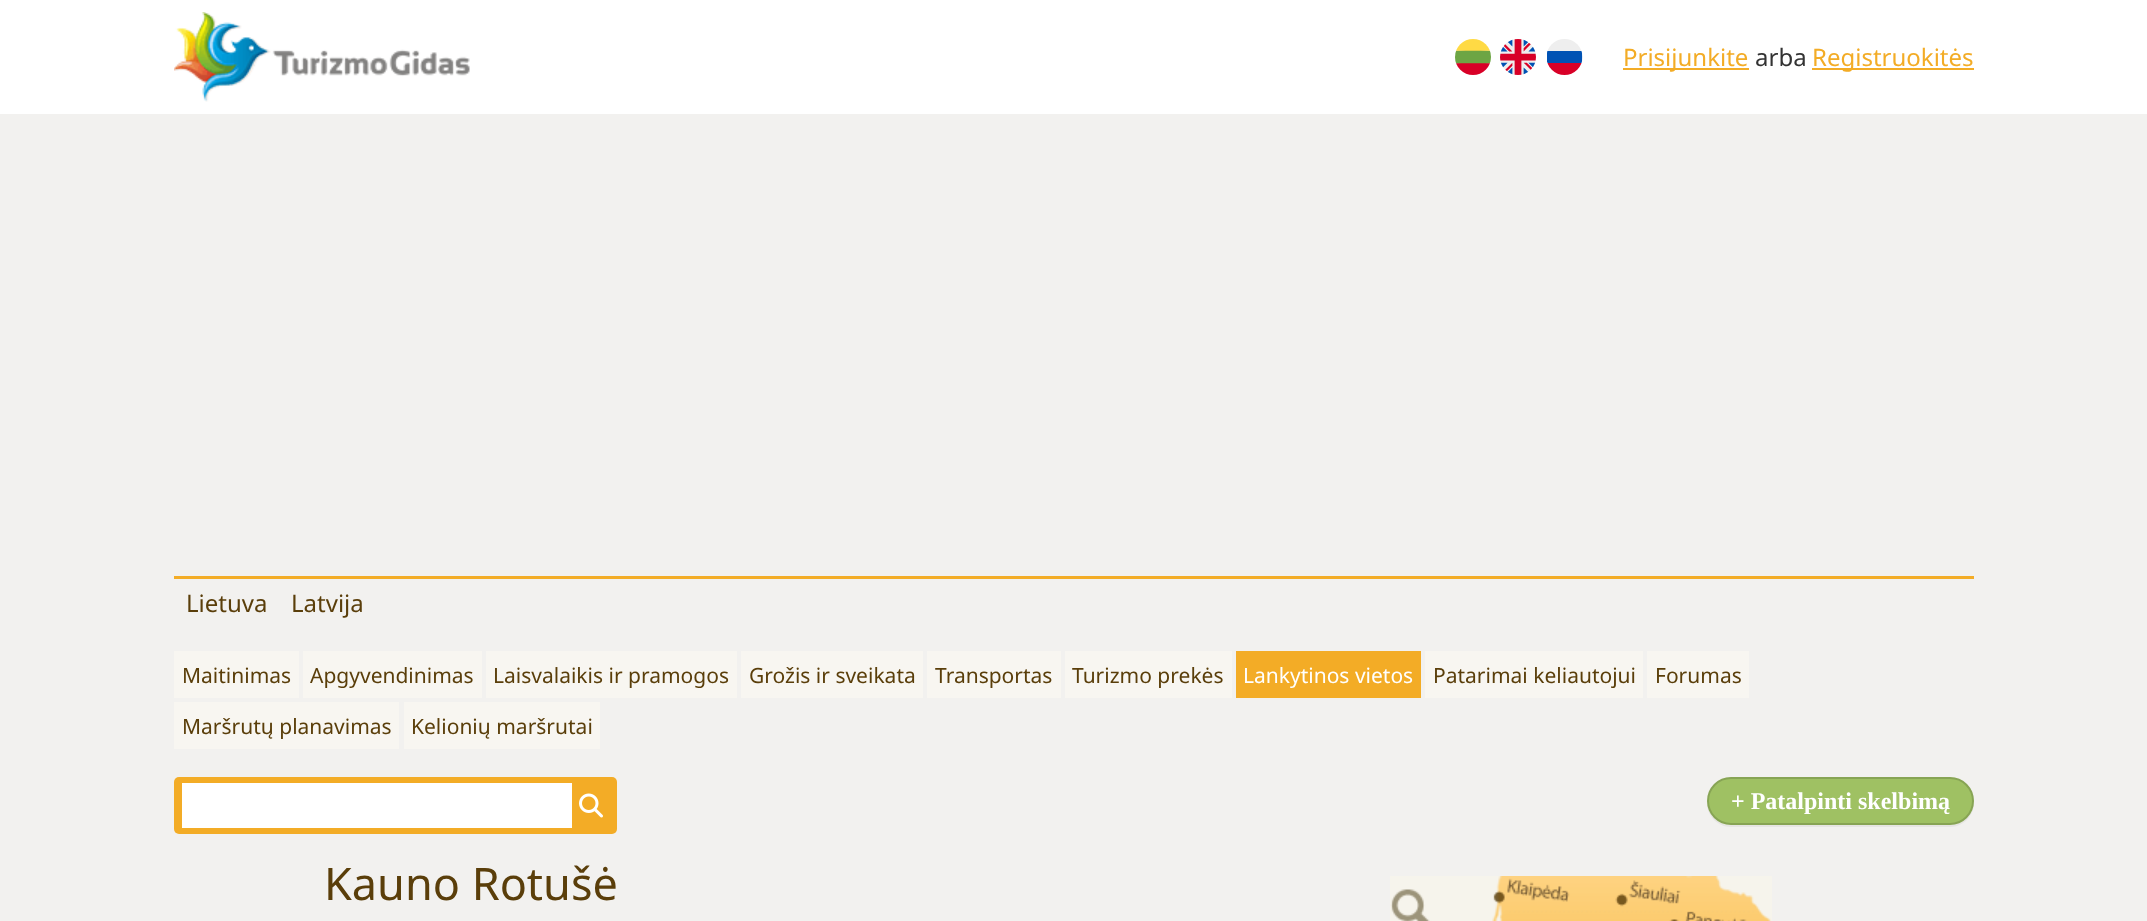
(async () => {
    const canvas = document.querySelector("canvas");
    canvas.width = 2147;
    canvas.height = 921;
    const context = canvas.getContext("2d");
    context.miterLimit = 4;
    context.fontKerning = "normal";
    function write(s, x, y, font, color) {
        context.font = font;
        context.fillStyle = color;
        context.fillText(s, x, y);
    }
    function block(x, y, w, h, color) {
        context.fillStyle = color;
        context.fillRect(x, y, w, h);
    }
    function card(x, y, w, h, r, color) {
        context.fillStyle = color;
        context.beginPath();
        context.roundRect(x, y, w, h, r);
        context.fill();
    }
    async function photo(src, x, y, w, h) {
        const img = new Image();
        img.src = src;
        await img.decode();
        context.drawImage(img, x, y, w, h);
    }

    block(0, 0, 2147, 921, "rgb(242, 241, 239)");
    block(0, 0, 2147, 114, "rgb(255, 255, 255)");
    await photo("media/1.png", 174, 12, 296, 90);
    await photo("media/2.png", 1455, 39, 36, 36);
    await photo("media/3.png", 1500, 39, 36, 36);
    await photo("media/4.png", 1547, 39, 36, 36);
    block(1623, 68, 126, 2, "rgb(243, 172, 38)");
    write("Prisijunkite", 1623, 66, "24px Noto Sans", "rgb(243, 172, 38)");
    write("arba", 1755, 66, "24px Noto Sans", "rgb(51, 51, 51)");
    block(1812, 68, 162, 2, "rgb(243, 172, 38)");
    write("Registruokitės", 1812, 66, "24px Noto Sans", "rgb(243, 172, 38)");
    block(174, 576, 1800, 3, "rgb(243, 172, 38)");
    write("Lietuva", 186, 612, "24px Noto Sans", "rgb(90, 62, 10)");
    write("Latvija", 291, 612, "24px Noto Sans", "rgb(90, 62, 10)");
    block(174, 651, 125, 47, "rgb(248, 246, 241)");
    write("Maitinimas", 182, 683, "21px Noto Sans", "rgb(90, 62, 10)");
    block(303, 651, 179, 47, "rgb(248, 246, 241)");
    write("Apgyvendinimas", 310, 683, "21px Noto Sans", "rgb(90, 62, 10)");
    block(486, 651, 251, 47, "rgb(248, 246, 241)");
    write("Laisvalaikis ir pramogos", 493, 683, "21px Noto Sans", "rgb(90, 62, 10)");
    block(741, 651, 182, 47, "rgb(248, 246, 241)");
    write("Grožis ir sveikata", 749, 683, "21px Noto Sans", "rgb(90, 62, 10)");
    block(927, 651, 134, 47, "rgb(248, 246, 241)");
    write("Transportas", 935, 683, "21px Noto Sans", "rgb(90, 62, 10)");
    block(1065, 651, 167, 47, "rgb(248, 246, 241)");
    write("Turizmo prekės", 1072, 683, "21px Noto Sans", "rgb(90, 62, 10)");
    block(1236, 651, 185, 47, "rgb(243, 172, 38)");
    write("Lankytinos vietos", 1243, 683, "21px Noto Sans", "rgb(255, 255, 255)");
    block(1425, 651, 218, 47, "rgb(248, 246, 241)");
    write("Patarimai keliautojui", 1433, 683, "21px Noto Sans", "rgb(90, 62, 10)");
    block(1647, 651, 102, 47, "rgb(248, 246, 241)");
    write("Forumas", 1655, 683, "21px Noto Sans", "rgb(90, 62, 10)");
    block(174, 702, 225, 47, "rgb(248, 246, 241)");
    write("Maršrutų planavimas", 182, 734, "21px Noto Sans", "rgb(90, 62, 10)");
    block(404, 702, 196, 47, "rgb(248, 246, 241)");
    write("Kelionių maršrutai", 411, 734, "21px Noto Sans", "rgb(90, 62, 10)");
    card(174, 777, 443, 57, 5, "rgb(243, 172, 38)");
    block(182, 783, 390, 45, "rgb(255, 255, 255)");
    await photo("media/5.png", 579, 793, 24, 25);
    context.fillStyle = "rgb(230, 229, 227)";
    context.beginPath();
    context.moveTo(1707, 802);
    context.lineTo(1707, 803);
    context.bezierCurveTo(1707, 816, 1718, 827, 1731, 827);
    context.lineTo(1950, 827);
    context.bezierCurveTo(1963, 827, 1974, 816, 1974, 803);
    context.lineTo(1974, 802);
    context.bezierCurveTo(1973, 815, 1963, 825, 1950, 825);
    context.lineTo(1731, 825);
    context.bezierCurveTo(1718, 825, 1708, 815, 1707, 802);
    context.closePath();
    context.fill();
    card(1707, 777, 267, 48, 24, "rgb(159, 193, 99)");
    context.beginPath();
    context.roundRect(1708, 778, 265, 46, 23);
    context.strokeStyle = "rgba(0, 0, 0, 0.15)";
    context.lineWidth = 2;
    context.stroke();
    write("+ Patalpinti skelbimą", 1731, 809, "bold 24px Liberation Serif", "rgb(255, 255, 255)");
    write("Kauno Rotušė", 324, 900, "45px Noto Sans", "rgb(90, 62, 10)");
    await photo("media/6.png", 1390, 876, 382, 45);
})();
